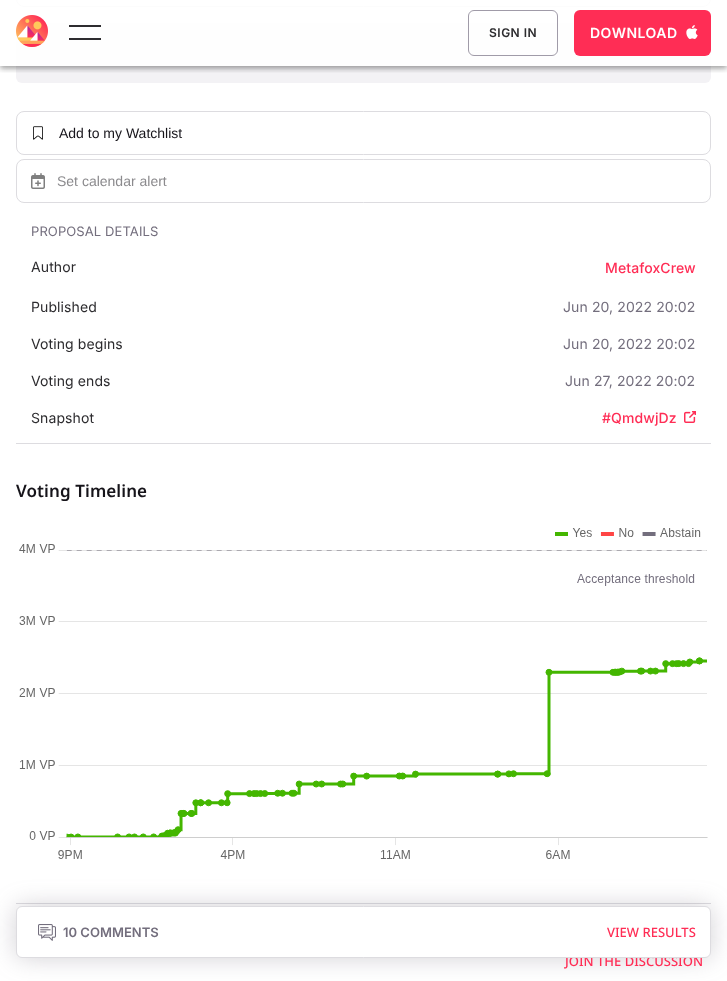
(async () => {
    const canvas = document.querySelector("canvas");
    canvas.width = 727;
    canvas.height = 981;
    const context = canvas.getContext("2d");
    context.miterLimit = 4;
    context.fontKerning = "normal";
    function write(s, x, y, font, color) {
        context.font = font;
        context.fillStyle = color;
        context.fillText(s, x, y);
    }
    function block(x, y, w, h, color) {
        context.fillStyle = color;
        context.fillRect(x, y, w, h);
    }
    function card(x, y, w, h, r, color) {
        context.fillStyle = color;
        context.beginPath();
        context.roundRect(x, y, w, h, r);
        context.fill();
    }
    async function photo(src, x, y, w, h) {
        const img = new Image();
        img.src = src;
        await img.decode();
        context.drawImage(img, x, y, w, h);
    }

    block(0, 0, 727, 981, "rgb(255, 255, 255)");
    context.beginPath();
    context.roundRect(16.5, -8.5, 694, 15, 7.5);
    context.strokeStyle = "rgb(221, 220, 224)";
    context.stroke();
    card(16, 23, 695, 60, 6, "rgb(243, 242, 245)");
    context.save();
    context.beginPath();
    context.rect(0, 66, 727, 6);
    context.clip();
    context.fillStyle = "rgba(0, 0, 0, 0.12)";
    context.filter = "blur(5px)";
    context.beginPath();
    context.rect(0, 1, 727, 66);
    context.fill();
    context.filter = "none";
    context.restore();
    context.save();
    context.beginPath();
    context.rect(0, 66, 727, 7);
    context.clip();
    context.fillStyle = "rgba(0, 0, 0, 0.14)";
    context.filter = "blur(2.5px)";
    context.beginPath();
    context.rect(0, 4, 727, 66);
    context.fill();
    context.filter = "none";
    context.restore();
    context.save();
    context.beginPath();
    context.rect(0, 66, 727, 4);
    context.clip();
    context.fillStyle = "rgba(0, 0, 0, 0.2)";
    context.filter = "blur(2px)";
    context.beginPath();
    context.rect(1, 3, 725, 64);
    context.fill();
    context.filter = "none";
    context.restore();
    block(16, 0, 695, 66, "rgba(255, 255, 255, 0.9)");
    await photo("media/1.png", 16, 15, 32, 32);
    block(69, 25, 32, 2, "rgb(45, 44, 47)");
    block(69, 38, 32, 2, "rgba(22, 21, 24, 0.9)");
    context.beginPath();
    context.roundRect(468.5, 10.5, 89, 45, 5.5);
    context.strokeStyle = "rgb(160, 155, 168)";
    context.stroke();
    context.letterSpacing = "0.5px";
    write("SIGN IN", 489, 37, "600 12px Inter", "rgb(45, 44, 47)");
    card(574, 10, 137, 46, 6, "rgb(255, 45, 85)");
    write("DOWNLOAD", 590, 38, "600 14px Inter", "rgb(255, 255, 255)");
    await photo("media/2.png", 686, 25, 12, 14);
    context.beginPath();
    context.roundRect(16.5, 111.5, 694, 43, 7.5);
    context.strokeStyle = "rgb(221, 220, 224)";
    context.stroke();
    await photo("media/3.png", 33, 126, 10, 14);
    context.letterSpacing = "0px";
    write("Add to my Watchlist", 59, 138, "14px Liberation Sans", "rgb(22, 20, 26)");
    context.beginPath();
    context.roundRect(16.5, 159.5, 694, 43, 7.5);
    context.stroke();
    await photo("media/4.png", 31, 173, 14, 16);
    write("Set calendar alert", 57, 186, "14px Liberation Sans", "rgb(139, 138, 141)");
    context.letterSpacing = "0.1px";
    write("PROPOSAL DETAILS", 31, 236, "13px Inter", "rgb(115, 110, 125)");
    write("Author", 31, 272, "14px Inter", "rgb(45, 44, 47)");
    write("MetafoxCrew", 605, 273, "500 14px Inter", "rgb(255, 45, 85)");
    write("Published", 31, 312, "14px Inter", "rgb(45, 44, 47)");
    write("Jun 20, 2022 20:02", 563, 312, "14px Inter", "rgb(115, 110, 125)");
    write("Voting begins", 31, 349, "14px Inter", "rgb(45, 44, 47)");
    write("Jun 20, 2022 20:02", 563, 349, "14px Inter", "rgb(115, 110, 125)");
    write("Voting ends", 31, 386, "14px Inter", "rgb(45, 44, 47)");
    write("Jun 27, 2022 20:02", 565, 386, "14px Inter", "rgb(115, 110, 125)");
    write("Snapshot", 31, 423, "14px Inter", "rgb(45, 44, 47)");
    write("#QmdwjDz", 602, 423, "500 14px Inter", "rgb(255, 45, 85)");
    await photo("media/5.png", 684, 411, 12, 12);
    block(16, 443, 695, 1, "rgb(221, 220, 224)");
    write("Voting Timeline", 16, 497, "600 17px Noto Sans", "rgb(22, 20, 26)");
    await photo("media/6.png", 19, 528, 689, 331);
    block(16, 903, 695, 1, "rgb(221, 220, 224)");
    context.fillStyle = "rgba(115, 110, 125, 0.32)";
    context.filter = "blur(12.5px)";
    context.beginPath();
    context.roundRect(16, 906, 695, 52, 6);
    context.fill();
    context.filter = "none";
    context.letterSpacing = "0px";
    write("JOIN THE DISCUSSION", 565, 966, "500 13px Noto Sans", "rgb(255, 45, 85)");
    context.fillStyle = "rgb(255, 255, 255)";
    context.beginPath();
    context.roundRect(16.5, 906.5, 694, 51, 5.5);
    context.fill();
    context.stroke();
    await photo("media/7.png", 38, 924, 18, 17);
    write("10 COMMENTS", 63, 937, "600 13px Inter", "rgb(115, 110, 125)");
    write("VIEW RESULTS", 607, 937, "500 13px Noto Sans", "rgb(255, 45, 85)");
})();
